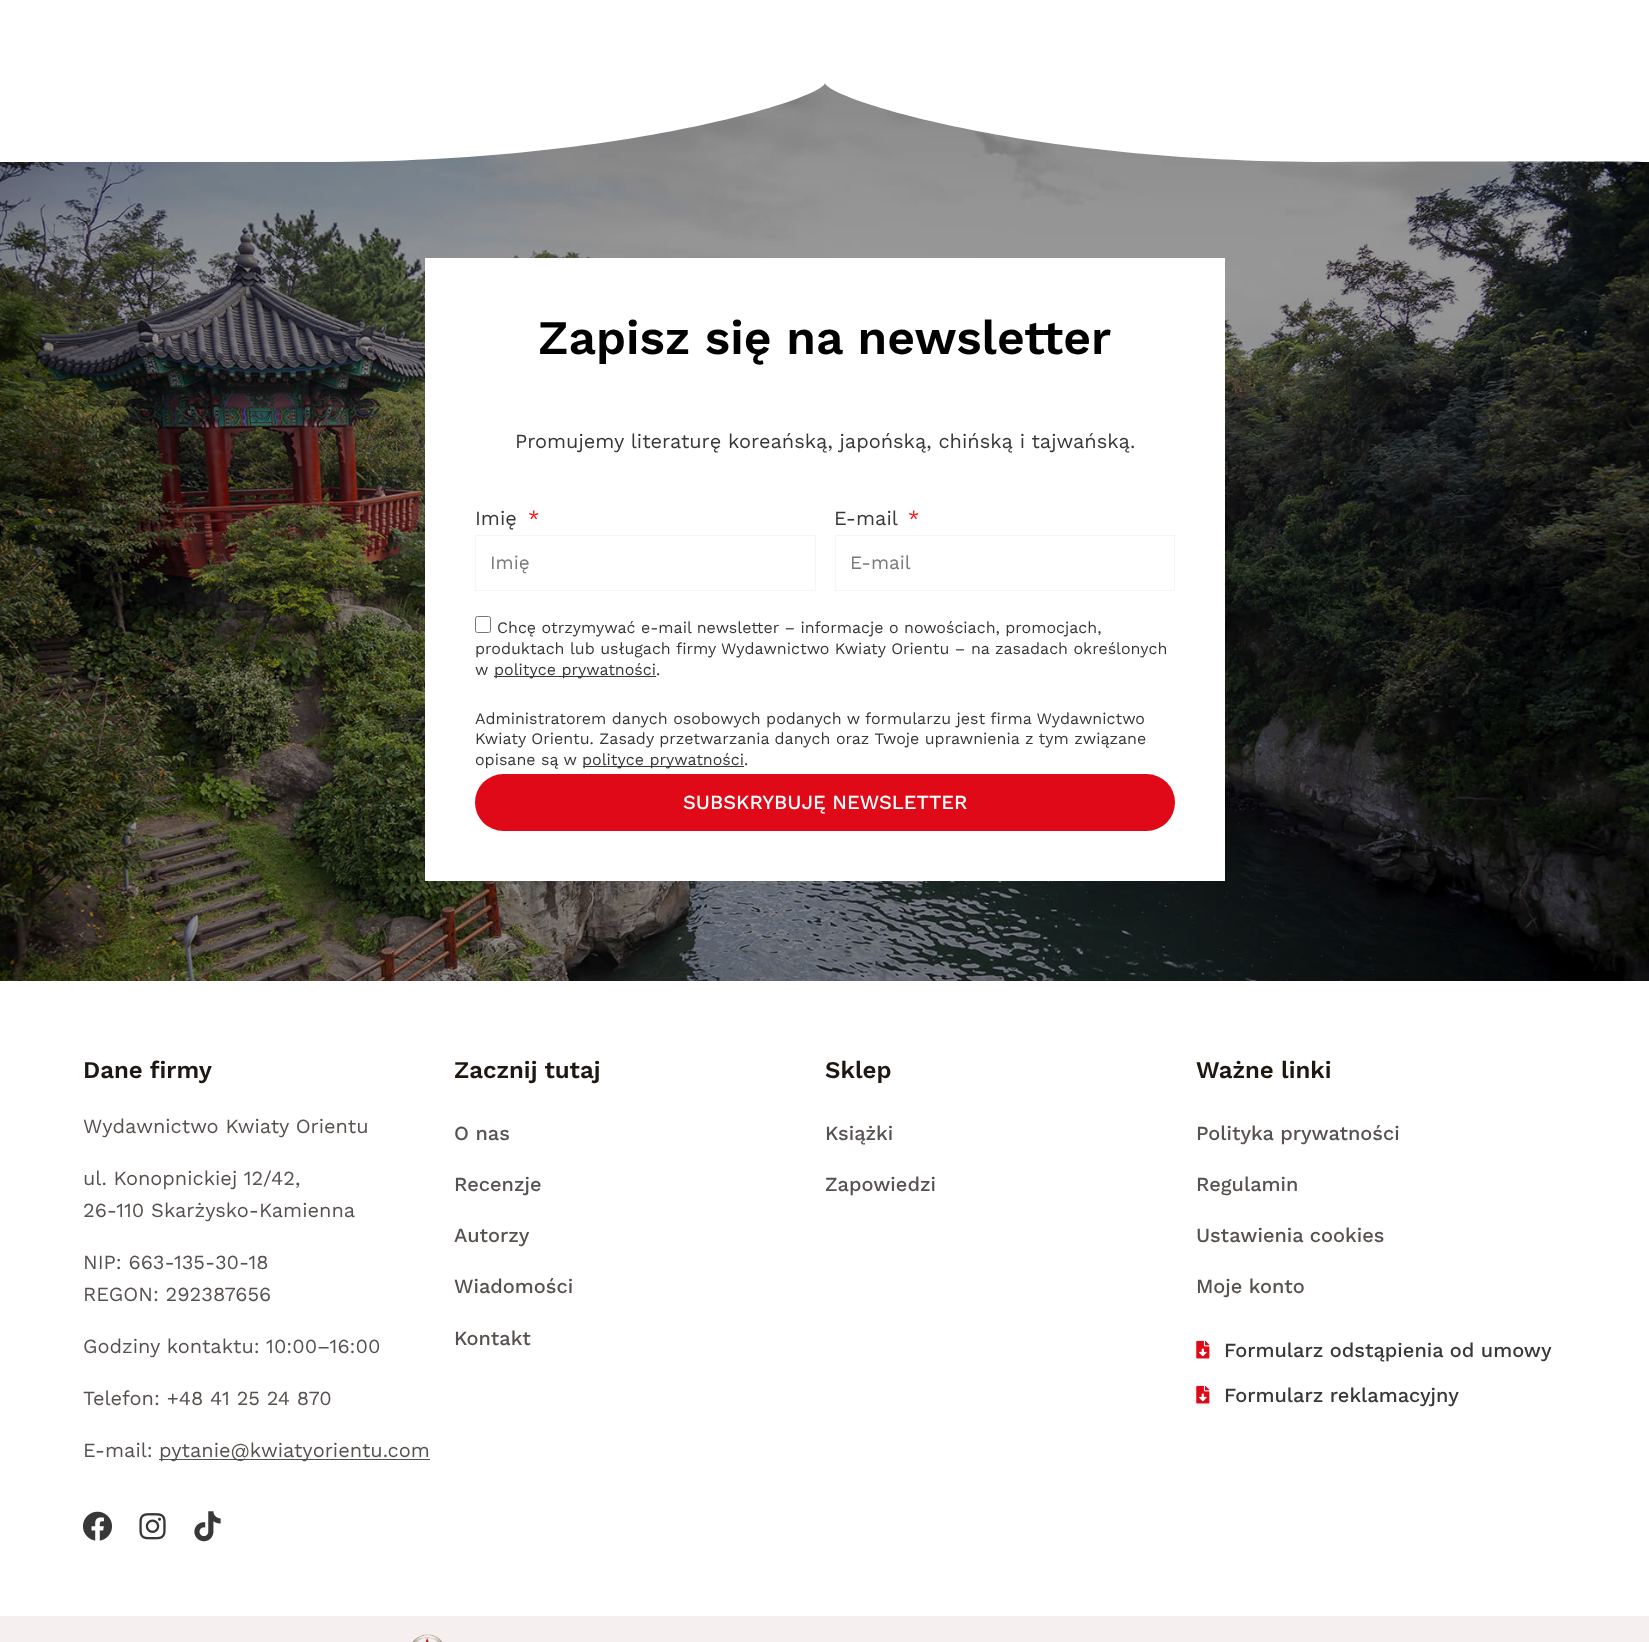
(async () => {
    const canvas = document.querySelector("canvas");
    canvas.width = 1649;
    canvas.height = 1642;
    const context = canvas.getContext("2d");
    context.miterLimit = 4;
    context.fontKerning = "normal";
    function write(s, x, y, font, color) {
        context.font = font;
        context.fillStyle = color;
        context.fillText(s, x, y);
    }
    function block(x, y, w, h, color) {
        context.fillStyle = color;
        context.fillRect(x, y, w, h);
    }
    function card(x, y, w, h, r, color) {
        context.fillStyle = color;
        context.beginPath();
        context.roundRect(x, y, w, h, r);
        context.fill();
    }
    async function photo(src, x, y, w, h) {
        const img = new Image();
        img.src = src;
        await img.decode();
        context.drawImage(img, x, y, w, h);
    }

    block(0, 0, 1649, 1642, "rgb(255, 255, 255)");
    await photo("media/1.png", 0, 83, 1649, 898);
    context.beginPath();
    context.moveTo(320, 162);
    context.bezierCurveTo(628, 162, 823, 98, 825, 83);
    context.bezierCurveTo(827, 98, 1022, 162, 1330, 162);
    context.bezierCurveTo(1519, 161, 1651, 162, 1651, 162);
    context.lineTo(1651, 81);
    context.lineTo(-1, 81);
    context.lineTo(-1, 162);
    context.closePath();
    context.fill();
    block(425, 258, 800, 623, "rgb(255, 255, 255)");
    write("Zapisz się na newsletter", 538, 354, "600 48px Work Sans", "rgb(0, 0, 0)");
    write("Promujemy literaturę koreańską, japońską, chińską i tajwańską.", 515, 448, "20px Work Sans", "rgb(56, 56, 56)");
    write("Imię", 475, 525, "20px Work Sans", "rgb(56, 56, 56)");
    write("*", 528, 525, "20px Work Sans", "rgb(255, 0, 0)");
    context.strokeStyle = "rgb(248, 245, 244)";
    context.strokeRect(475.5, 535.5, 340, 55);
    write("Imię", 490, 569, "19px Work Sans", "rgb(121, 122, 124)");
    write("E-mail", 834, 525, "20px Work Sans", "rgb(56, 56, 56)");
    write("*", 908, 525, "20px Work Sans", "rgb(255, 0, 0)");
    context.strokeRect(835.5, 535.5, 339, 55);
    write("E-mail", 850, 569, "19px Work Sans", "rgb(121, 122, 124)");
    context.beginPath();
    context.roundRect(475.5, 616.5, 15, 16, 2);
    context.strokeStyle = "rgb(118, 118, 118)";
    context.stroke();
    write("Chcę otrzymywać e-mail newsletter – informacje o nowościach, promocjach,", 497, 633, "16px Work Sans", "rgb(56, 56, 56)");
    write("produktach lub usługach firmy Wydawnictwo Kwiaty Orientu – na zasadach określonych", 475, 654, "16px Work Sans", "rgb(56, 56, 56)");
    write("w", 475, 675, "16px Work Sans", "rgb(56, 56, 56)");
    block(494, 676, 162, 1, "rgb(56, 56, 56)");
    write("polityce prywatności.", 494, 675, "16px Work Sans", "rgb(56, 56, 56)");
    write("Administratorem danych osobowych podanych w formularzu jest firma Wydawnictwo", 475, 724, "16px Work Sans", "rgb(56, 56, 56)");
    write("Kwiaty Orientu. Zasady przetwarzania danych oraz Twoje uprawnienia z tym związane", 475, 744, "16px Work Sans", "rgb(56, 56, 56)");
    write("opisane są w", 475, 765, "16px Work Sans", "rgb(56, 56, 56)");
    block(583, 766, 161, 1, "rgb(56, 56, 56)");
    write("polityce prywatności.", 582, 765, "16px Work Sans", "rgb(56, 56, 56)");
    card(475, 774, 700, 57, 28.5, "rgb(223, 9, 23)");
    write("SUBSKRYBUJĘ NEWSLETTER", 683, 809, "500 20px Work Sans", "rgb(255, 255, 255)");
    write("Dane firmy", 83, 1078, "600 24px Work Sans", "rgb(30, 24, 16)");
    write("Wydawnictwo Kwiaty Orientu", 83, 1133, "20px Work Sans", "rgb(87, 82, 80)");
    write("ul. Konopnickiej 12/42,", 83, 1185, "20px Work Sans", "rgb(87, 82, 80)");
    write("26-110 Skarżysko-Kamienna", 83, 1217, "20px Work Sans", "rgb(87, 82, 80)");
    write("NIP: 663-135-30-18", 83, 1269, "20px Work Sans", "rgb(87, 82, 80)");
    write("REGON: 292387656", 83, 1301, "20px Work Sans", "rgb(87, 82, 80)");
    write("Godziny kontaktu: 10:00–16:00", 83, 1353, "20px Work Sans", "rgb(87, 82, 80)");
    write("Telefon: +48 41 25 24 870", 83, 1405, "20px Work Sans", "rgb(87, 82, 80)");
    write("E-mail:", 83, 1457, "20px Work Sans", "rgb(87, 82, 80)");
    block(159, 1459, 271, 1, "rgb(87, 82, 80)");
    write("pytanie@kwiatyorientu.com", 159, 1457, "20px Work Sans", "rgb(87, 82, 80)");
    await photo("media/2.png", 83, 1511, 29, 30);
    await photo("media/3.png", 139, 1513, 27, 27);
    await photo("media/4.png", 194, 1511, 27, 31);
    write("Zacznij tutaj", 454, 1078, "600 24px Work Sans", "rgb(30, 24, 16)");
    write("O nas", 454, 1140, "500 20px Work Sans", "rgb(87, 82, 80)");
    write("Recenzje", 454, 1191, "500 20px Work Sans", "rgb(87, 82, 80)");
    write("Autorzy", 454, 1242, "500 20px Work Sans", "rgb(87, 82, 80)");
    write("Wiadomości", 454, 1293, "500 20px Work Sans", "rgb(87, 82, 80)");
    write("Kontakt", 454, 1345, "500 20px Work Sans", "rgb(87, 82, 80)");
    write("Sklep", 825, 1078, "600 24px Work Sans", "rgb(30, 24, 16)");
    write("Książki", 825, 1140, "500 20px Work Sans", "rgb(87, 82, 80)");
    write("Zapowiedzi", 825, 1191, "500 20px Work Sans", "rgb(87, 82, 80)");
    write("Ważne linki", 1196, 1078, "600 24px Work Sans", "rgb(30, 24, 16)");
    write("Polityka prywatności", 1196, 1140, "500 20px Work Sans", "rgb(87, 82, 80)");
    write("Regulamin", 1196, 1191, "500 20px Work Sans", "rgb(87, 82, 80)");
    write("Ustawienia cookies", 1196, 1242, "500 20px Work Sans", "rgb(87, 82, 80)");
    write("Moje konto", 1196, 1293, "500 20px Work Sans", "rgb(87, 82, 80)");
    await photo("media/5.png", 1196, 1340, 14, 19);
    write("Formularz odstąpienia od umowy", 1224, 1357, "500 20px Work Sans", "rgb(56, 56, 56)");
    await photo("media/5.png", 1196, 1385, 14, 19);
    write("Formularz reklamacyjny", 1224, 1402, "500 20px Work Sans", "rgb(56, 56, 56)");
    block(0, 1616, 1649, 26, "rgb(245, 240, 239)");
    await photo("media/6.png", 412, 1634, 31, 8);
})();
